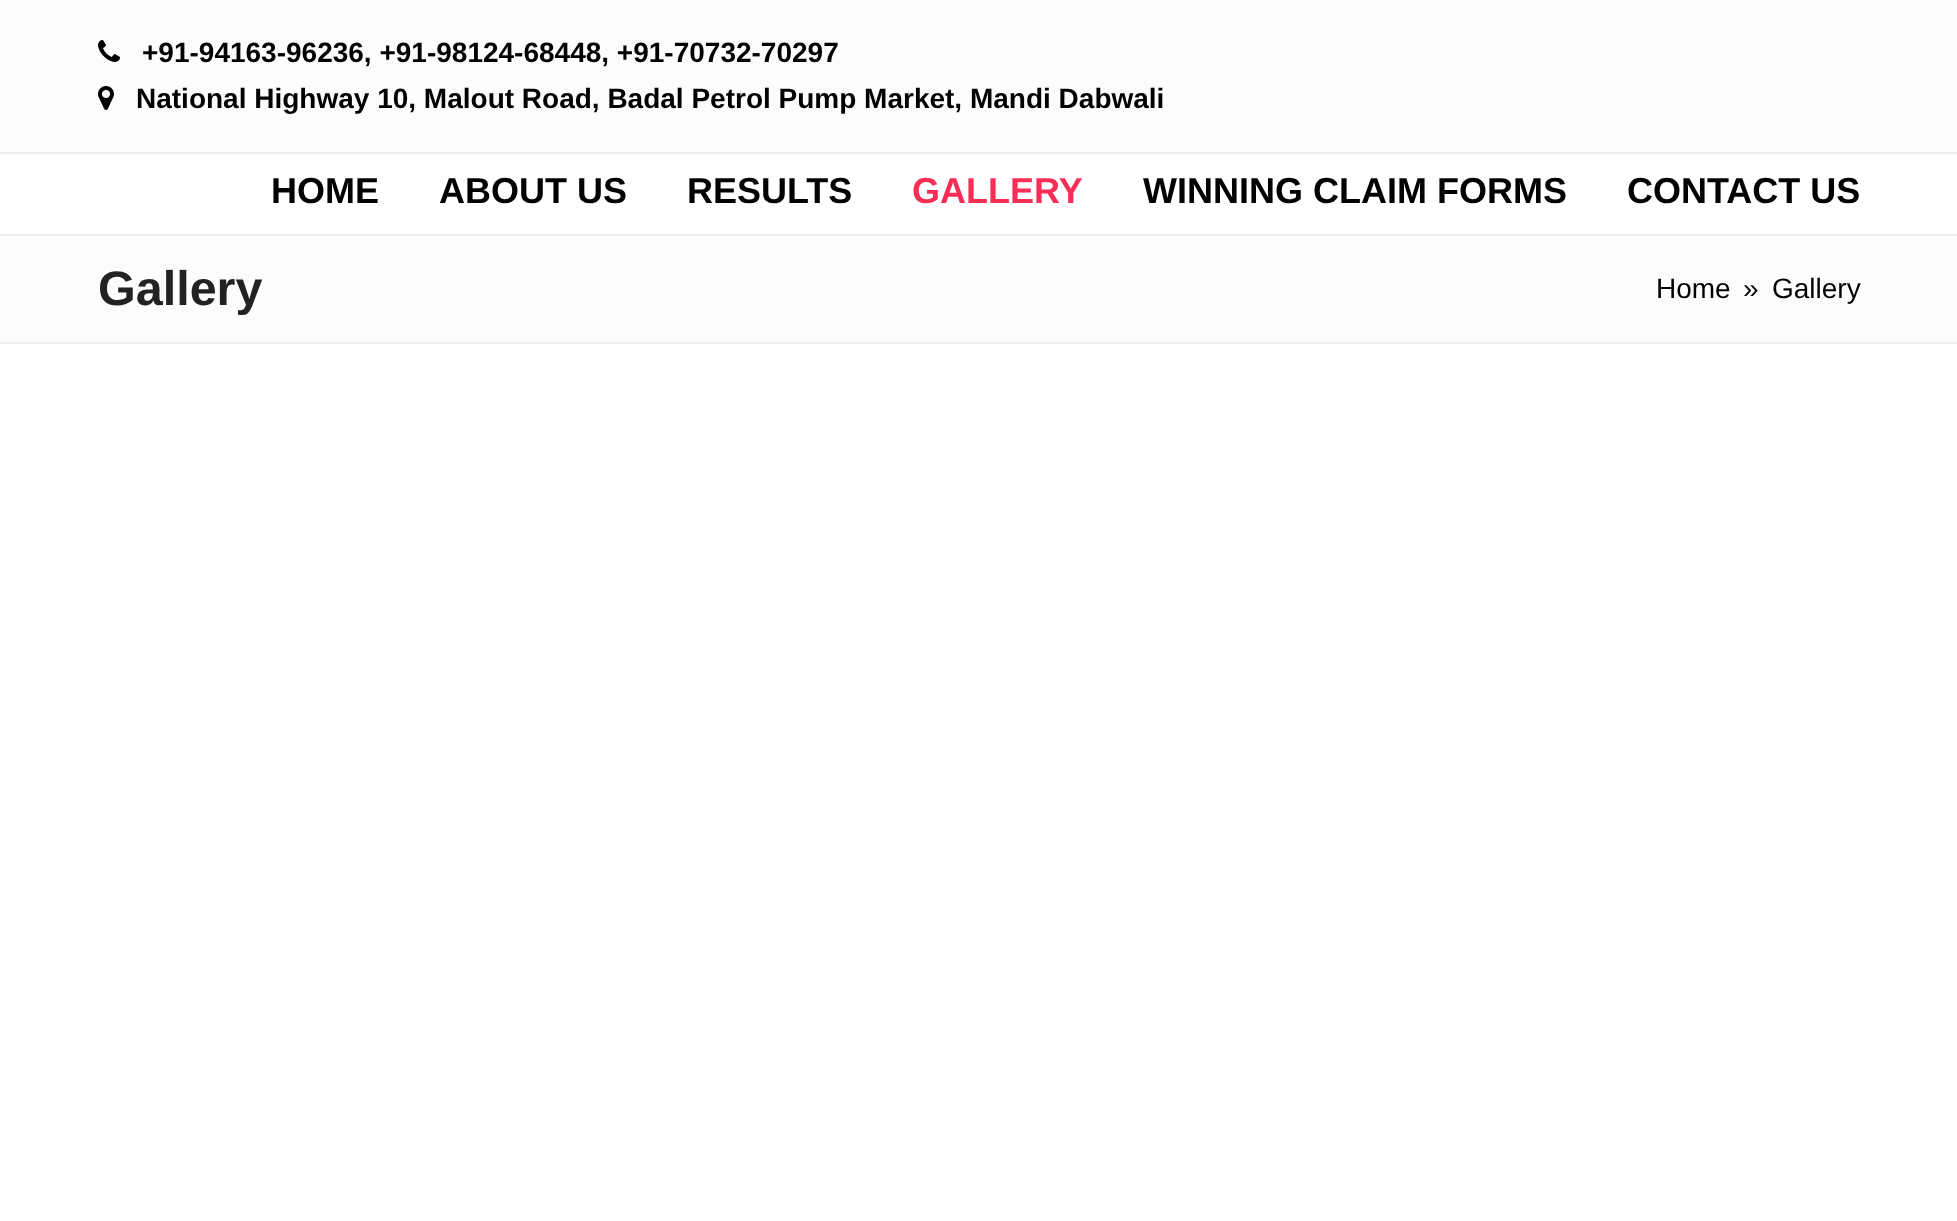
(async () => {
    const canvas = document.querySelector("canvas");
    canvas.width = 1957;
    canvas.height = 1221;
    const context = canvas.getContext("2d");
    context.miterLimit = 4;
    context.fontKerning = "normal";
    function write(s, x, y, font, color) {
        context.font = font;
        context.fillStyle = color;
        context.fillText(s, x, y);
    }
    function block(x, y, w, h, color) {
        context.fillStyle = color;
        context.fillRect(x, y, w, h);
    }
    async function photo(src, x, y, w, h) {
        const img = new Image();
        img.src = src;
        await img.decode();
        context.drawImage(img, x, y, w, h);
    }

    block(0, 0, 1957, 1221, "rgb(255, 255, 255)");
    block(0, 0, 1957, 152, "rgb(252, 252, 252)");
    block(0, 152, 1957, 2, "rgb(238, 238, 238)");
    await photo("media/1.png", 98, 40, 22, 22);
    write("+91-94163-96236, +91-98124-68448, +91-70732-70297", 142, 62, "bold 28px Liberation Sans", "rgb(2, 2, 2)");
    await photo("media/2.png", 98, 86, 16, 24);
    write("National Highway 10, Malout Road, Badal Petrol Pump Market, Mandi Dabwali", 136, 108, "bold 28px Liberation Sans", "rgb(2, 2, 2)");
    write("HOME", 271, 203, "bold 36px Liberation Sans", "rgb(2, 2, 2)");
    write("ABOUT US", 439, 203, "bold 36px Liberation Sans", "rgb(2, 2, 2)");
    write("RESULTS", 687, 203, "bold 36px Liberation Sans", "rgb(2, 2, 2)");
    write("GALLERY", 912, 203, "bold 36px Liberation Sans", "rgb(248, 46, 86)");
    write("WINNING CLAIM FORMS", 1143, 203, "bold 36px Liberation Sans", "rgb(2, 2, 2)");
    write("CONTACT US", 1627, 203, "bold 36px Liberation Sans", "rgb(2, 2, 2)");
    block(0, 236, 1957, 106, "rgb(252, 252, 252)");
    block(0, 234, 1957, 2, "rgb(238, 238, 238)");
    block(0, 342, 1957, 2, "rgb(238, 238, 238)");
    write("Gallery", 98, 305, "bold 48.5px Liberation Sans", "rgb(34, 34, 34)");
    write("Home", 1656, 298, "28px Liberation Sans", "rgb(2, 2, 2)");
    write("»", 1743, 298, "28px Liberation Sans", "rgb(2, 2, 2)");
    write("Gallery", 1772, 298, "28px Liberation Sans", "rgb(2, 2, 2)");
})();
